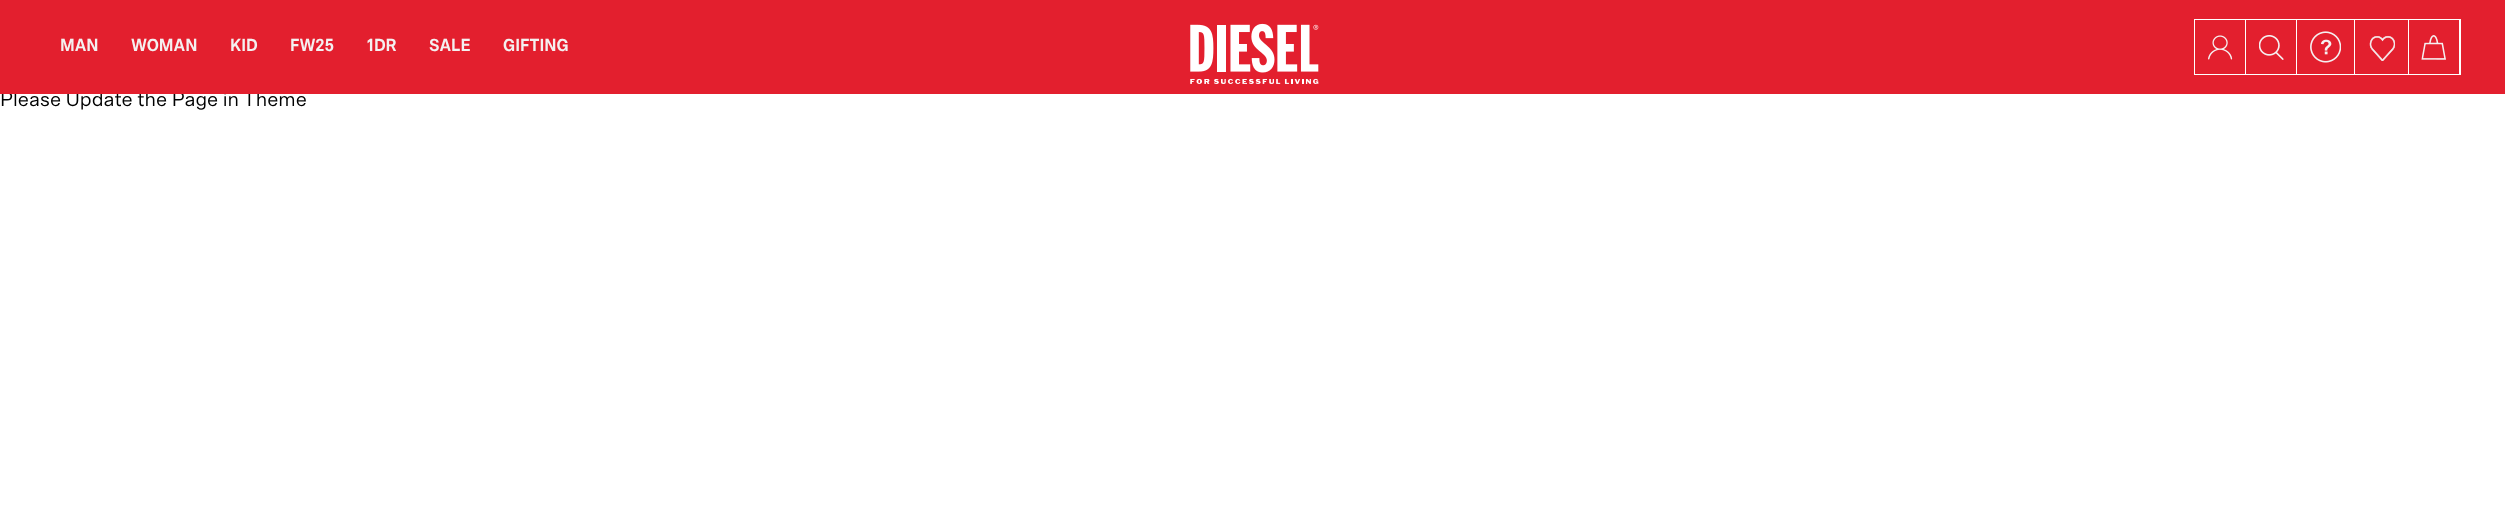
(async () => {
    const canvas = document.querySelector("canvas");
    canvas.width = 2505;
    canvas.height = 521;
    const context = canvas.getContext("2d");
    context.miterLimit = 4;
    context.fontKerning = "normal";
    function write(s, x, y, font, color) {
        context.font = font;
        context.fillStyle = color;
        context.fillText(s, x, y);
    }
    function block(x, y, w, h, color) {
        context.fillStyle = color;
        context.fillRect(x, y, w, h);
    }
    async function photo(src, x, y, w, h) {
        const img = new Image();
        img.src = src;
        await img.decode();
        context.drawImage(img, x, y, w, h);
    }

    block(0, 0, 2505, 521, "rgb(255, 255, 255)");
    write("Please Update the Page in Theme", 0, 106, "20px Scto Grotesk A", "rgb(0, 0, 0)");
    block(0, 0, 2505, 94, "rgb(227, 31, 46)");
    write("MAN", 60, 51, "bold 17.5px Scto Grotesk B", "rgb(244, 240, 240)");
    write("WOMAN", 131, 51, "bold 17.5px Scto Grotesk B", "rgb(244, 240, 240)");
    write("KID", 230, 51, "bold 17.5px Scto Grotesk B", "rgb(244, 240, 240)");
    write("FW25", 290, 51, "bold 17.5px Scto Grotesk B", "rgb(244, 240, 240)");
    write("1DR", 367, 51, "bold 17.5px Scto Grotesk B", "rgb(244, 240, 240)");
    write("SALE", 429, 51, "bold 17.5px Scto Grotesk B", "rgb(244, 240, 240)");
    write("GIFTING", 503, 51, "bold 17.5px Scto Grotesk B", "rgb(244, 240, 240)");
    await photo("media/1.png", 1190, 23, 129, 61);
    block(2194, 19, 267, 1, "rgb(255, 255, 255)");
    block(2194, 74, 267, 1, "rgb(255, 255, 255)");
    block(2194, 19, 1, 56, "rgb(255, 255, 255)");
    block(2245, 20, 1, 54, "rgb(255, 255, 255)");
    await photo("media/2.png", 2208, 35, 25, 25);
    block(2296, 20, 1, 54, "rgb(255, 255, 255)");
    await photo("media/3.png", 2259, 35, 25, 25);
    block(2354, 20, 1, 54, "rgb(255, 255, 255)");
    await photo("media/4.png", 2310, 31, 31, 32);
    block(2408, 20, 1, 54, "rgb(255, 255, 255)");
    await photo("media/5.png", 2369, 35, 26, 26);
    block(2459, 20, 2, 54, "rgb(255, 255, 255)");
    await photo("media/6.png", 2421, 35, 25, 25);
})();
